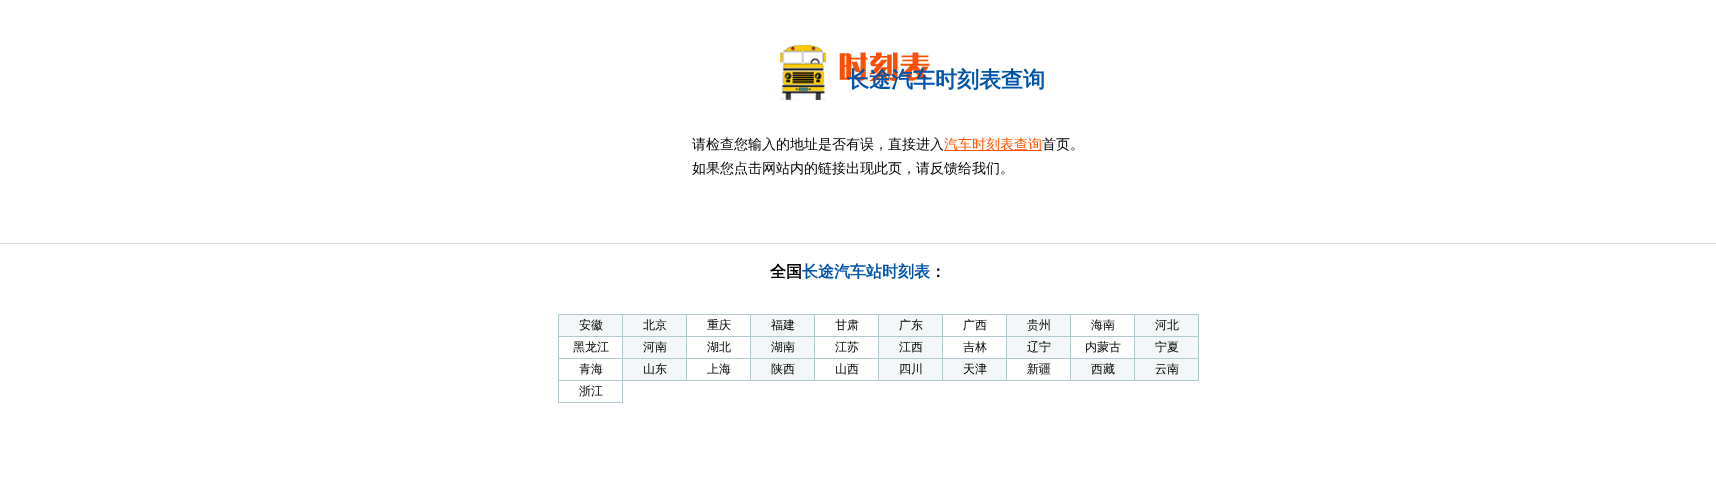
(async () => {
    const canvas = document.querySelector("canvas");
    canvas.width = 1716;
    canvas.height = 497;
    const context = canvas.getContext("2d");
    context.miterLimit = 4;
    context.fontKerning = "normal";
    function write(s, x, y, font, color) {
        context.font = font;
        context.fillStyle = color;
        context.fillText(s, x, y);
    }
    function block(x, y, w, h, color) {
        context.fillStyle = color;
        context.fillRect(x, y, w, h);
    }
    async function photo(src, x, y, w, h) {
        const img = new Image();
        img.src = src;
        await img.decode();
        context.drawImage(img, x, y, w, h);
    }

    block(0, 0, 1716, 497, "rgb(255, 255, 255)");
    block(0, 243, 1716, 1, "rgb(218, 218, 218)");
    await photo("media/1.png", 780, 45, 150, 55);
    write("长途汽车时刻表查询", 847, 87, "bold 22px WenQuanYi Zen Hei", "rgb(0, 85, 170)");
    write("请检查您输入的地址是否有误，直接进入", 692, 149, "500 14px WenQuanYi Zen Hei", "rgb(0, 0, 0)");
    block(944, 150, 98, 1, "rgb(255, 85, 0)");
    write("汽车时刻表查询", 944, 149, "500 14px WenQuanYi Zen Hei", "rgb(255, 85, 0)");
    write("首页。", 1042, 149, "500 14px WenQuanYi Zen Hei", "rgb(0, 0, 0)");
    write("如果您点击网站内的链接出现此页，请反馈给我们。", 692, 173, "500 14px WenQuanYi Zen Hei", "rgb(0, 0, 0)");
    write("全国", 770, 277, "bold 16px WenQuanYi Zen Hei", "rgb(0, 0, 0)");
    write("长途汽车站时刻表", 802, 277, "bold 16px WenQuanYi Zen Hei", "rgb(0, 85, 170)");
    write("：", 930, 277, "bold 16px WenQuanYi Zen Hei", "rgb(0, 0, 0)");
    block(558, 314, 641, 1, "rgb(179, 201, 208)");
    block(558, 314, 1, 89, "rgb(179, 201, 208)");
    block(559, 315, 63, 21, "rgb(244, 247, 247)");
    block(622, 315, 1, 88, "rgb(179, 201, 208)");
    block(559, 336, 64, 1, "rgb(179, 201, 208)");
    write("安徽", 579, 329, "500 12px WenQuanYi Zen Hei", "rgb(0, 0, 0)");
    block(623, 315, 63, 21, "rgb(244, 247, 247)");
    block(686, 315, 1, 66, "rgb(179, 201, 208)");
    block(623, 336, 64, 1, "rgb(179, 201, 208)");
    write("北京", 643, 329, "500 12px WenQuanYi Zen Hei", "rgb(0, 0, 0)");
    block(750, 315, 1, 66, "rgb(179, 201, 208)");
    block(687, 336, 64, 1, "rgb(179, 201, 208)");
    write("重庆", 707, 329, "500 12px WenQuanYi Zen Hei", "rgb(0, 0, 0)");
    block(751, 315, 63, 21, "rgb(244, 247, 247)");
    block(814, 315, 1, 66, "rgb(179, 201, 208)");
    block(751, 336, 64, 1, "rgb(179, 201, 208)");
    write("福建", 771, 329, "500 12px WenQuanYi Zen Hei", "rgb(0, 0, 0)");
    block(878, 315, 1, 66, "rgb(179, 201, 208)");
    block(815, 336, 64, 1, "rgb(179, 201, 208)");
    write("甘肃", 835, 329, "500 12px WenQuanYi Zen Hei", "rgb(0, 0, 0)");
    block(879, 315, 63, 21, "rgb(244, 247, 247)");
    block(942, 315, 1, 66, "rgb(179, 201, 208)");
    block(879, 336, 64, 1, "rgb(179, 201, 208)");
    write("广东", 899, 329, "500 12px WenQuanYi Zen Hei", "rgb(0, 0, 0)");
    block(1006, 315, 1, 66, "rgb(179, 201, 208)");
    block(943, 336, 64, 1, "rgb(179, 201, 208)");
    write("广西", 963, 329, "500 12px WenQuanYi Zen Hei", "rgb(0, 0, 0)");
    block(1007, 315, 63, 21, "rgb(244, 247, 247)");
    block(1070, 315, 1, 66, "rgb(179, 201, 208)");
    block(1007, 336, 64, 1, "rgb(179, 201, 208)");
    write("贵州", 1027, 329, "500 12px WenQuanYi Zen Hei", "rgb(0, 0, 0)");
    block(1134, 315, 1, 66, "rgb(179, 201, 208)");
    block(1071, 336, 64, 1, "rgb(179, 201, 208)");
    write("海南", 1091, 329, "500 12px WenQuanYi Zen Hei", "rgb(0, 0, 0)");
    block(1135, 315, 63, 21, "rgb(244, 247, 247)");
    block(1198, 315, 1, 66, "rgb(179, 201, 208)");
    block(1135, 336, 64, 1, "rgb(179, 201, 208)");
    write("河北", 1155, 329, "500 12px WenQuanYi Zen Hei", "rgb(0, 0, 0)");
    block(559, 358, 640, 1, "rgb(179, 201, 208)");
    write("黑龙江", 573, 351, "500 12px WenQuanYi Zen Hei", "rgb(0, 0, 0)");
    block(623, 337, 63, 21, "rgb(244, 247, 247)");
    write("河南", 643, 351, "500 12px WenQuanYi Zen Hei", "rgb(0, 0, 0)");
    write("湖北", 707, 351, "500 12px WenQuanYi Zen Hei", "rgb(0, 0, 0)");
    block(751, 337, 63, 21, "rgb(244, 247, 247)");
    write("湖南", 771, 351, "500 12px WenQuanYi Zen Hei", "rgb(0, 0, 0)");
    write("江苏", 835, 351, "500 12px WenQuanYi Zen Hei", "rgb(0, 0, 0)");
    block(879, 337, 63, 21, "rgb(244, 247, 247)");
    write("江西", 899, 351, "500 12px WenQuanYi Zen Hei", "rgb(0, 0, 0)");
    write("吉林", 963, 351, "500 12px WenQuanYi Zen Hei", "rgb(0, 0, 0)");
    block(1007, 337, 63, 21, "rgb(244, 247, 247)");
    write("辽宁", 1027, 351, "500 12px WenQuanYi Zen Hei", "rgb(0, 0, 0)");
    write("内蒙古", 1085, 351, "500 12px WenQuanYi Zen Hei", "rgb(0, 0, 0)");
    block(1135, 337, 63, 21, "rgb(244, 247, 247)");
    write("宁夏", 1155, 351, "500 12px WenQuanYi Zen Hei", "rgb(0, 0, 0)");
    block(559, 380, 640, 1, "rgb(179, 201, 208)");
    write("青海", 579, 373, "500 12px WenQuanYi Zen Hei", "rgb(0, 0, 0)");
    block(623, 359, 63, 21, "rgb(244, 247, 247)");
    write("山东", 643, 373, "500 12px WenQuanYi Zen Hei", "rgb(0, 0, 0)");
    write("上海", 707, 373, "500 12px WenQuanYi Zen Hei", "rgb(0, 0, 0)");
    block(751, 359, 63, 21, "rgb(244, 247, 247)");
    write("陕西", 771, 373, "500 12px WenQuanYi Zen Hei", "rgb(0, 0, 0)");
    write("山西", 835, 373, "500 12px WenQuanYi Zen Hei", "rgb(0, 0, 0)");
    block(879, 359, 63, 21, "rgb(244, 247, 247)");
    write("四川", 899, 373, "500 12px WenQuanYi Zen Hei", "rgb(0, 0, 0)");
    block(943, 359, 63, 21, "rgb(244, 247, 247)");
    write("天津", 963, 373, "500 12px WenQuanYi Zen Hei", "rgb(0, 0, 0)");
    write("新疆", 1027, 373, "500 12px WenQuanYi Zen Hei", "rgb(0, 0, 0)");
    block(1071, 359, 63, 21, "rgb(244, 247, 247)");
    write("西藏", 1091, 373, "500 12px WenQuanYi Zen Hei", "rgb(0, 0, 0)");
    block(1135, 359, 63, 21, "rgb(244, 247, 247)");
    write("云南", 1155, 373, "500 12px WenQuanYi Zen Hei", "rgb(0, 0, 0)");
    block(559, 402, 64, 1, "rgb(179, 201, 208)");
    write("浙江", 579, 395, "500 12px WenQuanYi Zen Hei", "rgb(0, 0, 0)");
})();
